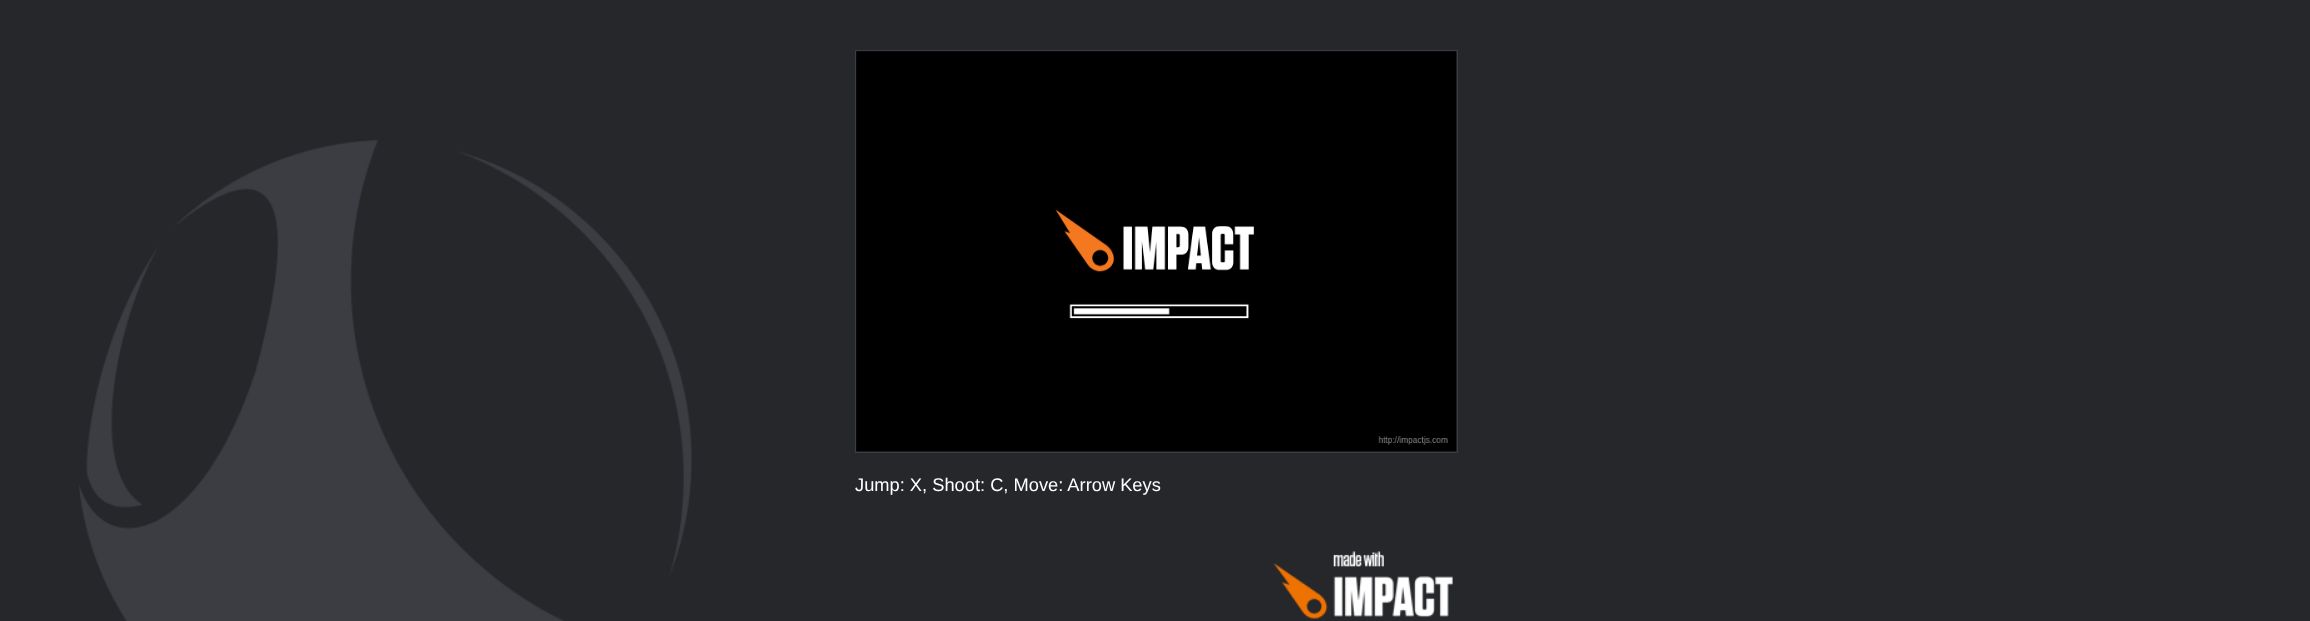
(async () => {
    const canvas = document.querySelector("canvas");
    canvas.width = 2310;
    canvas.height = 621;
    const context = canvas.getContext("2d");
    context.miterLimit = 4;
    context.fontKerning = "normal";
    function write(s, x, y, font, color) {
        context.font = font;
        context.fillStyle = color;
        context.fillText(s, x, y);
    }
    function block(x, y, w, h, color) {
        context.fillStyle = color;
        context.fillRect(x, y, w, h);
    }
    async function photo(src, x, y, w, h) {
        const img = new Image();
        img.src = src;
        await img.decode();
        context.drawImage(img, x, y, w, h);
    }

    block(0, 0, 2310, 621, "rgb(37, 39, 43)");
    await photo("media/1.png", 79, 140, 613, 481);
    context.strokeStyle = "rgb(59, 61, 66)";
    context.strokeRect(855.5, 50.5, 602, 402);
    await photo("media/2.png", 856, 51, 601, 401);
    write("Jump: X, Shoot: C, Move: Arrow Keys", 855, 491, "18.3px Liberation Sans", "rgb(255, 255, 255)");
    await photo("media/3.png", 1273, 551, 180, 68);
})();
